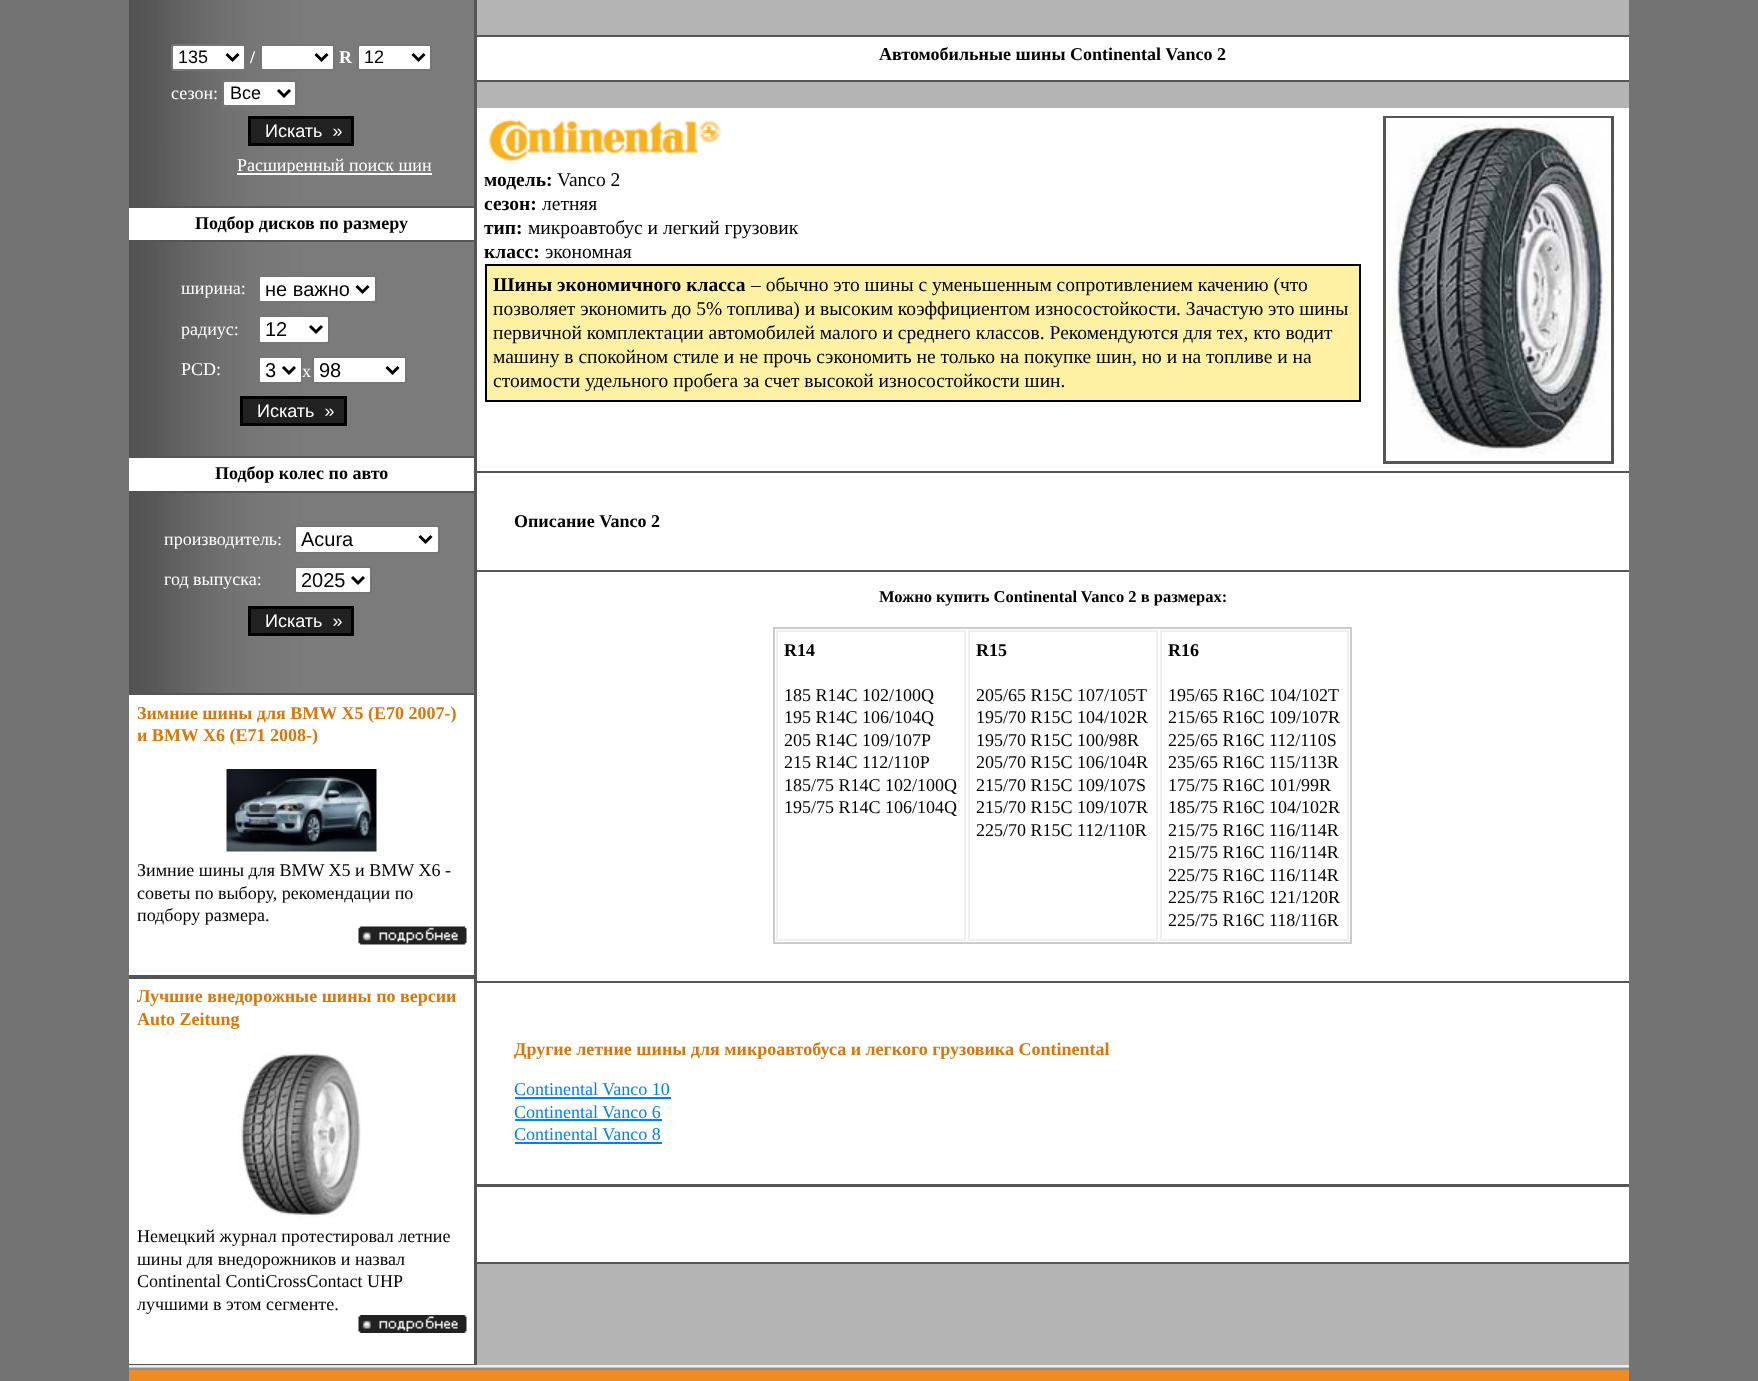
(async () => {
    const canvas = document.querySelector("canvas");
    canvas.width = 1758;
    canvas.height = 1381;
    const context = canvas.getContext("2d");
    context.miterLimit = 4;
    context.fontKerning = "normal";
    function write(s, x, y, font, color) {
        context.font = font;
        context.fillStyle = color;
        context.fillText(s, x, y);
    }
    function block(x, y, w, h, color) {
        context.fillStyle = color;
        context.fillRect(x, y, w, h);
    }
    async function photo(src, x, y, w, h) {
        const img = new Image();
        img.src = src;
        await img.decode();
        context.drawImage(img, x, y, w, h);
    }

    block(0, 0, 1758, 1381, "rgb(115, 115, 115)");
    await photo("media/1.png", 129, 0, 345, 693);
    block(474, 0, 3, 1365, "rgb(85, 85, 85)");
    context.fillStyle = "rgb(255, 255, 255)";
    context.beginPath();
    context.roundRect(172, 45, 73, 25, 2);
    context.fill();
    context.strokeStyle = "rgb(118, 118, 118)";
    context.lineWidth = 2;
    context.stroke();
    context.beginPath();
    context.moveTo(226.5, 54);
    context.lineTo(232.5, 60);
    context.lineTo(238.5, 54);
    context.strokeStyle = "rgb(0, 0, 0)";
    context.lineWidth = 3;
    context.stroke();
    write("135", 178, 63, "18px Liberation Sans", "rgb(0, 0, 0)");
    write("/", 250, 63, "bold 18px Liberation Serif", "rgb(255, 255, 255)");
    context.beginPath();
    context.roundRect(261, 45, 73, 25, 2);
    context.fill();
    context.strokeStyle = "rgb(118, 118, 118)";
    context.lineWidth = 2;
    context.stroke();
    context.beginPath();
    context.moveTo(315.5, 54);
    context.lineTo(321.5, 60);
    context.lineTo(327.5, 54);
    context.strokeStyle = "rgb(0, 0, 0)";
    context.lineWidth = 3;
    context.stroke();
    write("R", 339, 63, "bold 18px Liberation Serif", "rgb(255, 255, 255)");
    context.beginPath();
    context.roundRect(358, 45, 73, 25, 2);
    context.fill();
    context.strokeStyle = "rgb(118, 118, 118)";
    context.lineWidth = 2;
    context.stroke();
    context.beginPath();
    context.moveTo(412.5, 54);
    context.lineTo(418.5, 60);
    context.lineTo(424.5, 54);
    context.strokeStyle = "rgb(0, 0, 0)";
    context.lineWidth = 3;
    context.stroke();
    write("12", 364, 63, "18px Liberation Sans", "rgb(0, 0, 0)");
    write("сезон:", 171, 99, "18px Liberation Serif", "rgb(255, 255, 255)");
    context.beginPath();
    context.roundRect(223, 81, 73, 25, 2);
    context.fill();
    context.strokeStyle = "rgb(118, 118, 118)";
    context.lineWidth = 2;
    context.stroke();
    context.beginPath();
    context.moveTo(278, 90);
    context.lineTo(284, 96);
    context.lineTo(290, 90);
    context.strokeStyle = "rgb(0, 0, 0)";
    context.lineWidth = 3;
    context.stroke();
    write("Все", 230, 99, "18px Liberation Sans", "rgb(0, 0, 0)");
    context.fillStyle = "rgb(33, 33, 33)";
    context.beginPath();
    context.rect(249.5, 117.5, 103, 27);
    context.fill();
    context.stroke();
    write("Искать  »", 265, 137, "18px Liberation Sans", "rgb(255, 255, 255)");
    block(237, 173, 195, 2, "rgb(255, 255, 255)");
    write("Расширенный поиск шин", 237, 171, "18px Liberation Serif", "rgb(255, 255, 255)");
    block(129, 208, 345, 32, "rgb(255, 255, 255)");
    block(153, 206, 321, 2, "rgb(85, 85, 85)");
    block(153, 240, 321, 2, "rgb(85, 85, 85)");
    write("Подбор дисков по размеру", 195, 229, "bold 18px Liberation Serif", "rgb(0, 0, 0)");
    write("ширина:", 181, 294, "18px Liberation Serif", "rgb(255, 255, 255)");
    context.beginPath();
    context.roundRect(259, 276, 117, 26, 2);
    context.fill();
    context.strokeStyle = "rgb(118, 118, 118)";
    context.lineWidth = 2;
    context.stroke();
    context.beginPath();
    context.moveTo(356.5, 286);
    context.lineTo(362.5, 292);
    context.lineTo(368.5, 286);
    context.strokeStyle = "rgb(0, 0, 0)";
    context.lineWidth = 3;
    context.stroke();
    write("не важно", 265, 296, "20px Liberation Sans", "rgb(0, 0, 0)");
    write("радиус:", 181, 335, "18px Liberation Serif", "rgb(255, 255, 255)");
    context.beginPath();
    context.roundRect(259, 316, 70, 27, 2);
    context.fill();
    context.strokeStyle = "rgb(118, 118, 118)";
    context.lineWidth = 2;
    context.stroke();
    context.beginPath();
    context.moveTo(310, 326);
    context.lineTo(316, 332);
    context.lineTo(322, 326);
    context.strokeStyle = "rgb(0, 0, 0)";
    context.lineWidth = 3;
    context.stroke();
    write("12", 265, 336, "20px Liberation Sans", "rgb(0, 0, 0)");
    write("PCD:", 181, 375, "18px Liberation Serif", "rgb(255, 255, 255)");
    context.beginPath();
    context.roundRect(259, 357, 43, 26, 2);
    context.fill();
    context.strokeStyle = "rgb(118, 118, 118)";
    context.lineWidth = 2;
    context.stroke();
    context.beginPath();
    context.moveTo(283, 367);
    context.lineTo(289, 373);
    context.lineTo(295, 367);
    context.strokeStyle = "rgb(0, 0, 0)";
    context.lineWidth = 3;
    context.stroke();
    write("3", 265, 377, "20px Liberation Sans", "rgb(0, 0, 0)");
    write("x", 302, 377, "18px Liberation Serif", "rgb(255, 255, 255)");
    context.beginPath();
    context.roundRect(313, 357, 93, 26, 2);
    context.fill();
    context.strokeStyle = "rgb(118, 118, 118)";
    context.lineWidth = 2;
    context.stroke();
    context.beginPath();
    context.moveTo(386.5, 367);
    context.lineTo(392.5, 373);
    context.lineTo(398.5, 367);
    context.strokeStyle = "rgb(0, 0, 0)";
    context.lineWidth = 3;
    context.stroke();
    context.save();
    context.beginPath();
    context.rect(320, 357, 61, 26);
    context.clip();
    write("98", 319, 377, "20px Liberation Sans", "rgb(0, 0, 0)");
    context.restore();
    context.fillStyle = "rgb(33, 33, 33)";
    context.beginPath();
    context.rect(241.5, 397.5, 104, 27);
    context.fill();
    context.stroke();
    write("Искать  »", 257, 417, "18px Liberation Sans", "rgb(255, 255, 255)");
    block(129, 458, 345, 33, "rgb(255, 255, 255)");
    block(153, 456, 321, 2, "rgb(85, 85, 85)");
    block(153, 491, 321, 2, "rgb(85, 85, 85)");
    write("Подбор колес по авто", 215, 479, "bold 18px Liberation Serif", "rgb(0, 0, 0)");
    write("производитель:", 164, 545, "18px Liberation Serif", "rgb(255, 255, 255)");
    context.beginPath();
    context.roundRect(295, 526, 144, 27, 2);
    context.fill();
    context.strokeStyle = "rgb(118, 118, 118)";
    context.lineWidth = 2;
    context.stroke();
    context.beginPath();
    context.moveTo(419.5, 536);
    context.lineTo(425.5, 542);
    context.lineTo(431.5, 536);
    context.strokeStyle = "rgb(0, 0, 0)";
    context.lineWidth = 3;
    context.stroke();
    write("Acura", 301, 546, "20px Liberation Sans", "rgb(0, 0, 0)");
    write("год выпуска:", 164, 585, "18px Liberation Serif", "rgb(255, 255, 255)");
    context.beginPath();
    context.roundRect(295, 567, 76, 26, 2);
    context.fill();
    context.strokeStyle = "rgb(118, 118, 118)";
    context.lineWidth = 2;
    context.stroke();
    context.beginPath();
    context.moveTo(352, 577);
    context.lineTo(358, 583);
    context.lineTo(364, 577);
    context.strokeStyle = "rgb(0, 0, 0)";
    context.lineWidth = 3;
    context.stroke();
    write("2025", 301, 587, "20px Liberation Sans", "rgb(0, 0, 0)");
    context.fillStyle = "rgb(33, 33, 33)";
    context.beginPath();
    context.rect(249.5, 607.5, 103, 27);
    context.fill();
    context.stroke();
    write("Искать  »", 265, 627, "18px Liberation Sans", "rgb(255, 255, 255)");
    block(129, 695, 345, 280, "rgb(255, 255, 255)");
    block(129, 693, 345, 2, "rgb(85, 85, 85)");
    block(129, 975, 345, 4, "rgb(85, 85, 85)");
    write("Зимние шины для BMW X5 (E70 2007-)", 137, 719, "bold 18px Liberation Serif", "rgb(219, 118, 9)");
    write("и BMW X6 (E71 2008-)", 137, 741, "bold 18px Liberation Serif", "rgb(219, 118, 9)");
    await photo("media/2.png", 226, 769, 151, 83);
    write("Зимние шины для BMW X5 и BMW X6 -", 137, 876, "18px Liberation Serif", "rgb(0, 0, 0)");
    write("советы по выбору, рекомендации по", 137, 899, "18px Liberation Serif", "rgb(0, 0, 0)");
    write("подбору размера.", 137, 921, "18px Liberation Serif", "rgb(0, 0, 0)");
    await photo("media/3.png", 358, 926, 109, 19);
    block(129, 979, 345, 385, "rgb(255, 255, 255)");
    block(129, 1364, 345, 1, "rgb(85, 85, 85)");
    write("Лучшие внедорожные шины по версии", 137, 1002, "bold 18px Liberation Serif", "rgb(219, 118, 9)");
    write("Auto Zeitung", 137, 1025, "bold 18px Liberation Serif", "rgb(219, 118, 9)");
    await photo("media/4.png", 238, 1053, 123, 165);
    write("Немецкий журнал протестировал летние", 137, 1242, "18px Liberation Serif", "rgb(0, 0, 0)");
    write("шины для внедорожников и назвал", 137, 1265, "18px Liberation Serif", "rgb(0, 0, 0)");
    write("Continental ContiCrossContact UHP", 137, 1287, "18px Liberation Serif", "rgb(0, 0, 0)");
    write("лучшими в этом сегменте.", 137, 1310, "18px Liberation Serif", "rgb(0, 0, 0)");
    await photo("media/5.png", 358, 1315, 109, 18);
    block(477, 0, 1152, 1365, "rgb(180, 180, 180)");
    block(477, 37, 1152, 43, "rgb(255, 255, 255)");
    block(477, 35, 1152, 2, "rgb(85, 85, 85)");
    block(477, 80, 1152, 2, "rgb(85, 85, 85)");
    write("Автомобильные шины Continental Vanco 2", 879, 60, "bold 18px Liberation Serif", "rgb(0, 0, 0)");
    block(477, 108, 1152, 363, "rgb(255, 255, 255)");
    await photo("media/6.png", 488, 119, 234, 43);
    write("модель:", 484, 186, "bold 19.5px Liberation Serif", "rgb(0, 0, 0)");
    write("Vanco 2", 557, 186, "19.5px Liberation Serif", "rgb(0, 0, 0)");
    write("сезон:", 484, 210, "bold 19.5px Liberation Serif", "rgb(0, 0, 0)");
    write("летняя", 542, 210, "19.5px Liberation Serif", "rgb(0, 0, 0)");
    write("тип:", 484, 234, "bold 19.5px Liberation Serif", "rgb(0, 0, 0)");
    write("микроавтобус и легкий грузовик", 528, 234, "19.5px Liberation Serif", "rgb(0, 0, 0)");
    write("класс:", 484, 258, "bold 19.5px Liberation Serif", "rgb(0, 0, 0)");
    write("экономная", 545, 258, "19.5px Liberation Serif", "rgb(0, 0, 0)");
    context.fillStyle = "rgb(255, 241, 164)";
    context.beginPath();
    context.rect(486, 265, 874, 136);
    context.fill();
    context.lineWidth = 2;
    context.stroke();
    write("Шины экономичного класса", 493, 291, "bold 19.5px Liberation Serif", "rgb(0, 0, 0)");
    write("– обычно это шины с уменьшенным сопротивлением качению (что", 751, 291, "19.5px Liberation Serif", "rgb(0, 0, 0)");
    write("позволяет экономить до 5% топлива) и высоким коэффициентом износостойкости. Зачастую это шины", 493, 315, "19.5px Liberation Serif", "rgb(0, 0, 0)");
    write("первичной комплектации автомобилей малого и среднего классов. Рекомендуются для тех, кто водит", 493, 339, "19.5px Liberation Serif", "rgb(0, 0, 0)");
    write("машину в спокойном стиле и не прочь сэкономить не только на покупке шин, но и на топливе и на", 493, 363, "19.5px Liberation Serif", "rgb(0, 0, 0)");
    write("стоимости удельного пробега за счет высокой износостойкости шин.", 493, 387, "19.5px Liberation Serif", "rgb(0, 0, 0)");
    context.strokeStyle = "rgb(85, 85, 85)";
    context.lineWidth = 3;
    context.strokeRect(1384.5, 117.5, 228, 345);
    await photo("media/7.png", 1386, 118, 225, 338);
    block(477, 473, 1152, 97, "rgb(255, 255, 255)");
    block(477, 471, 1152, 2, "rgb(85, 85, 85)");
    block(477, 570, 1152, 2, "rgb(85, 85, 85)");
    write("Описание Vanco 2", 514, 527, "bold 18px Liberation Serif", "rgb(0, 0, 0)");
    block(477, 572, 1152, 409, "rgb(255, 255, 255)");
    write("Можно купить Continental Vanco 2 в размерах:", 879, 602, "bold 16.5px Liberation Serif", "rgb(0, 0, 0)");
    context.strokeStyle = "rgb(204, 204, 204)";
    context.lineWidth = 2;
    context.strokeRect(774, 628, 577, 315);
    context.strokeStyle = "rgb(239, 239, 239)";
    context.strokeRect(777, 631, 188, 309);
    write("R14", 784, 656, "bold 18px Liberation Serif", "rgb(0, 0, 0)");
    write("185 R14C 102/100Q", 784, 701, "18px Liberation Serif", "rgb(0, 0, 0)");
    write("195 R14C 106/104Q", 784, 723, "18px Liberation Serif", "rgb(0, 0, 0)");
    write("205 R14C 109/107P", 784, 746, "18px Liberation Serif", "rgb(0, 0, 0)");
    write("215 R14C 112/110P", 784, 768, "18px Liberation Serif", "rgb(0, 0, 0)");
    write("185/75 R14C 102/100Q", 784, 791, "18px Liberation Serif", "rgb(0, 0, 0)");
    write("195/75 R14C 106/104Q", 784, 813, "18px Liberation Serif", "rgb(0, 0, 0)");
    context.strokeRect(969, 631, 188, 309);
    write("R15", 976, 656, "bold 18px Liberation Serif", "rgb(0, 0, 0)");
    write("205/65 R15C 107/105T", 976, 701, "18px Liberation Serif", "rgb(0, 0, 0)");
    write("195/70 R15C 104/102R", 976, 723, "18px Liberation Serif", "rgb(0, 0, 0)");
    write("195/70 R15C 100/98R", 976, 746, "18px Liberation Serif", "rgb(0, 0, 0)");
    write("205/70 R15C 106/104R", 976, 768, "18px Liberation Serif", "rgb(0, 0, 0)");
    write("215/70 R15C 109/107S", 976, 791, "18px Liberation Serif", "rgb(0, 0, 0)");
    write("215/70 R15C 109/107R", 976, 813, "18px Liberation Serif", "rgb(0, 0, 0)");
    write("225/70 R15C 112/110R", 976, 836, "18px Liberation Serif", "rgb(0, 0, 0)");
    context.strokeRect(1161, 631, 187, 309);
    write("R16", 1168, 656, "bold 18px Liberation Serif", "rgb(0, 0, 0)");
    write("195/65 R16C 104/102T", 1168, 701, "18px Liberation Serif", "rgb(0, 0, 0)");
    write("215/65 R16C 109/107R", 1168, 723, "18px Liberation Serif", "rgb(0, 0, 0)");
    write("225/65 R16C 112/110S", 1168, 746, "18px Liberation Serif", "rgb(0, 0, 0)");
    write("235/65 R16C 115/113R", 1168, 768, "18px Liberation Serif", "rgb(0, 0, 0)");
    write("175/75 R16C 101/99R", 1168, 791, "18px Liberation Serif", "rgb(0, 0, 0)");
    write("185/75 R16C 104/102R", 1168, 813, "18px Liberation Serif", "rgb(0, 0, 0)");
    write("215/75 R16C 116/114R", 1168, 836, "18px Liberation Serif", "rgb(0, 0, 0)");
    write("215/75 R16C 116/114R", 1168, 858, "18px Liberation Serif", "rgb(0, 0, 0)");
    write("225/75 R16C 116/114R", 1168, 881, "18px Liberation Serif", "rgb(0, 0, 0)");
    write("225/75 R16C 121/120R", 1168, 903, "18px Liberation Serif", "rgb(0, 0, 0)");
    write("225/75 R16C 118/116R", 1168, 926, "18px Liberation Serif", "rgb(0, 0, 0)");
    block(477, 983, 1152, 201, "rgb(255, 255, 255)");
    block(477, 981, 1152, 2, "rgb(85, 85, 85)");
    block(477, 1184, 1152, 3, "rgb(85, 85, 85)");
    write("Другие летние шины для микроавтобуса и легкого грузовика Continental", 514, 1055, "bold 18px Liberation Serif", "rgb(219, 118, 9)");
    write("Continental Vanco 10", 514, 1095, "18px Liberation Serif", "rgb(0, 128, 255)");
    block(515, 1097, 156, 2, "rgb(0, 128, 255)");
    write("Continental Vanco 6", 514, 1118, "18px Liberation Serif", "rgb(0, 128, 255)");
    block(515, 1119, 147, 2, "rgb(0, 128, 255)");
    write("Continental Vanco 8", 514, 1140, "18px Liberation Serif", "rgb(0, 128, 255)");
    block(515, 1142, 147, 2, "rgb(0, 128, 255)");
    block(477, 1187, 1152, 75, "rgb(255, 255, 255)");
    block(477, 1262, 1152, 2, "rgb(85, 85, 85)");
    block(129, 1367, 1500, 1, "rgb(195, 195, 195)");
    block(129, 1365, 1500, 2, "rgb(236, 236, 236)");
    block(129, 1368, 1500, 2, "rgb(143, 143, 143)");
    block(129, 1370, 1500, 11, "rgb(238, 140, 33)");
})();
